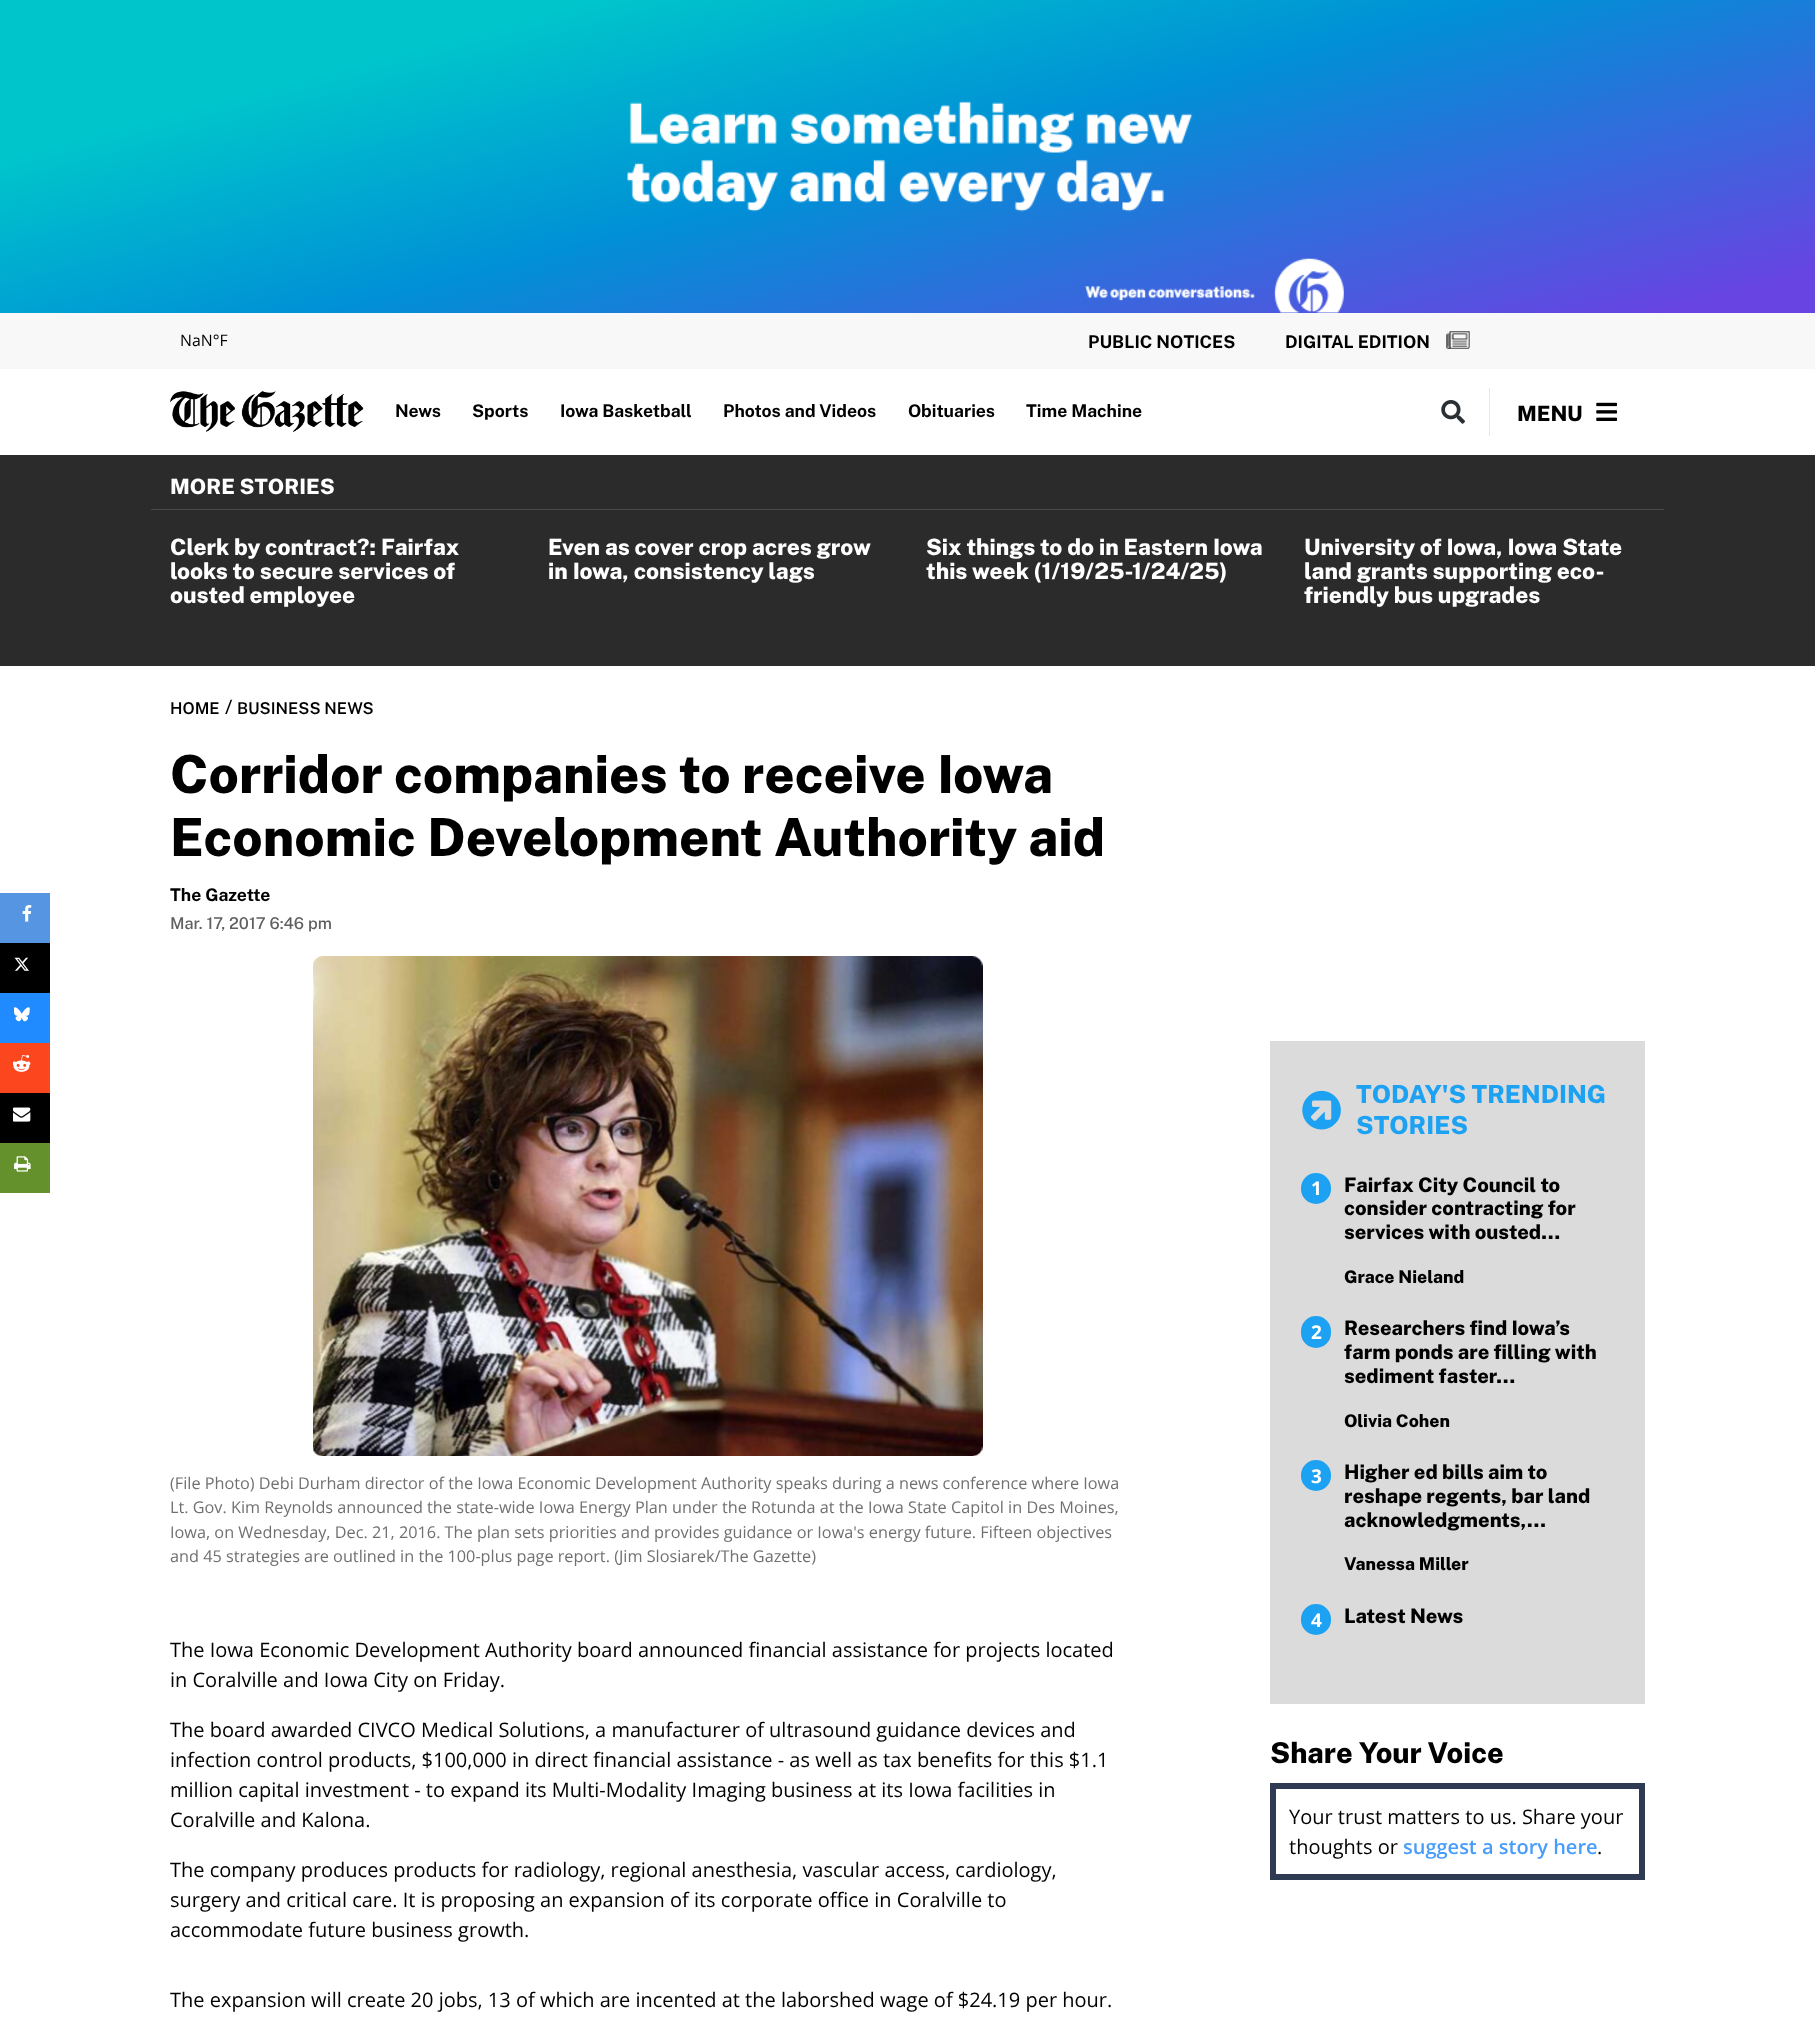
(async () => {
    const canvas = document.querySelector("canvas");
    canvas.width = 1815;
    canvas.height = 2035;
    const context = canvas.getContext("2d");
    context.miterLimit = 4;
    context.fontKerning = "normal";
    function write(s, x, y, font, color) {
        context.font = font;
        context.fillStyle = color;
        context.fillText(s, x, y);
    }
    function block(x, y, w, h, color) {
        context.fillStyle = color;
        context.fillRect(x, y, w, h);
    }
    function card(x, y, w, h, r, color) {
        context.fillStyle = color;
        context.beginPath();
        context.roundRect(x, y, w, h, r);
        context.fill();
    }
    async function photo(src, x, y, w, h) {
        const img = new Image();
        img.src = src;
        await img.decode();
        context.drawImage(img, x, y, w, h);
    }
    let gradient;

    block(0, 0, 1815, 2035, "rgb(255, 255, 255)");
    gradient = context.createLinearGradient(808, -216, 1007, 529);
    gradient.addColorStop(0.2, "rgb(0, 197, 203)");
    gradient.addColorStop(0.5, "rgb(0, 144, 214)");
    gradient.addColorStop(0.95, "rgb(104, 68, 226)");
    context.fillStyle = gradient;
    context.fillRect(0, 0, 1815, 313);
    await photo("media/1.png", 627, 101, 717, 212);
    block(0, 313, 1815, 56, "rgb(248, 248, 248)");
    await photo("media/2.png", 181, 334, 47, 13);
    write("PUBLIC NOTICES", 1088, 348, "bold 17.5px Public Sans", "rgb(0, 0, 0)");
    write("DIGITAL EDITION", 1285, 348, "bold 17.5px Public Sans", "rgb(0, 0, 0)");
    await photo("media/3.png", 1446, 331, 24, 18);
    await photo("media/4.png", 170, 391, 194, 41);
    write("News", 395, 417, "bold 17.5px Public Sans", "rgb(0, 0, 0)");
    write("Sports", 472, 417, "bold 17.5px Public Sans", "rgb(0, 0, 0)");
    write("Iowa Basketball", 560, 417, "bold 17.5px Public Sans", "rgb(0, 0, 0)");
    write("Photos and Videos", 723, 417, "bold 17.5px Public Sans", "rgb(0, 0, 0)");
    write("Obituaries", 908, 417, "bold 17.5px Public Sans", "rgb(0, 0, 0)");
    write("Time Machine", 1026, 417, "bold 17.5px Public Sans", "rgb(0, 0, 0)");
    await photo("media/5.png", 1441, 400, 24, 24);
    block(1489, 388, 1, 48, "rgb(231, 231, 231)");
    write("MENU", 1517, 421, "800 21.25px Public Sans", "rgb(0, 0, 0)");
    await photo("media/6.png", 1596, 402, 21, 19);
    block(0, 893, 50, 50, "rgb(86, 149, 226)");
    await photo("media/7.png", 22, 905, 10, 17);
    block(0, 943, 50, 50, "rgb(0, 0, 0)");
    await photo("media/8.png", 14, 957, 15, 14);
    block(0, 993, 50, 50, "rgb(32, 139, 254)");
    await photo("media/9.png", 14, 1007, 16, 15);
    block(0, 1043, 50, 50, "rgb(252, 70, 30)");
    await photo("media/10.png", 13, 1055, 18, 17);
    block(0, 1093, 50, 50, "rgb(0, 0, 0)");
    await photo("media/11.png", 13, 1107, 18, 15);
    block(0, 1143, 50, 50, "rgb(100, 145, 43)");
    await photo("media/12.png", 14, 1156, 17, 16);
    block(0, 455, 1815, 211, "rgb(43, 43, 43)");
    block(151, 509, 1513, 1, "rgb(72, 72, 72)");
    write("MORE STORIES", 170, 494, "800 21.25px Public Sans", "rgb(255, 255, 255)");
    write("Clerk by contract?: Fairfax", 170, 555, "800 22.5px Public Sans", "rgb(255, 255, 255)");
    write("looks to secure services of", 170, 579, "800 22.5px Public Sans", "rgb(255, 255, 255)");
    write("ousted employee", 170, 603, "800 22.5px Public Sans", "rgb(255, 255, 255)");
    write("Even as cover crop acres grow", 548, 555, "800 22.5px Public Sans", "rgb(255, 255, 255)");
    write("in Iowa, consistency lags", 548, 579, "800 22.5px Public Sans", "rgb(255, 255, 255)");
    write("Six things to do in Eastern Iowa", 926, 555, "800 22.5px Public Sans", "rgb(255, 255, 255)");
    write("this week (1/19/25-1/24/25)", 926, 579, "800 22.5px Public Sans", "rgb(255, 255, 255)");
    write("University of Iowa, Iowa State", 1304, 555, "800 22.5px Public Sans", "rgb(255, 255, 255)");
    write("land grants supporting eco-", 1304, 579, "800 22.5px Public Sans", "rgb(255, 255, 255)");
    write("friendly bus upgrades", 1304, 603, "800 22.5px Public Sans", "rgb(255, 255, 255)");
    write("HOME", 170, 714, "600 16.25px Public Sans", "rgb(0, 0, 0)");
    write("/", 225, 714, "20px Open Sans", "rgb(0, 0, 0)");
    write("BUSINESS NEWS", 237, 714, "600 16.25px Public Sans", "rgb(0, 0, 0)");
    write("Corridor companies to receive Iowa", 170, 793, "800 52.5px Public Sans", "rgb(0, 0, 0)");
    write("Economic Development Authority aid", 170, 856, "800 52.5px Public Sans", "rgb(0, 0, 0)");
    write("The Gazette", 170, 901, "bold 17.5px Public Sans", "rgb(0, 0, 0)");
    write("Mar. 17, 2017 6:46 pm", 170, 929, "500 16.25px Public Sans", "rgb(96, 96, 96)");
    await photo("media/13.png", 313, 956, 670, 500);
    write("(File Photo) Debi Durham director of the Iowa Economic Development Authority speaks during a news conference where Iowa", 170, 1489, "16.25px Open Sans", "rgb(112, 112, 112)");
    write("Lt. Gov. Kim Reynolds announced the state-wide Iowa Energy Plan under the Rotunda at the Iowa State Capitol in Des Moines,", 170, 1513, "16.25px Open Sans", "rgb(112, 112, 112)");
    write("Iowa, on Wednesday, Dec. 21, 2016. The plan sets priorities and provides guidance or Iowa's energy future. Fifteen objectives", 170, 1538, "16.25px Open Sans", "rgb(112, 112, 112)");
    write("and 45 strategies are outlined in the 100-plus page report. (Jim Slosiarek/The Gazette)", 170, 1562, "16.25px Open Sans", "rgb(112, 112, 112)");
    write("The Iowa Economic Development Authority board announced financial assistance for projects located", 170, 1657, "20px Open Sans", "rgb(0, 0, 0)");
    write("in Coralville and Iowa City on Friday.", 170, 1687, "20px Open Sans", "rgb(0, 0, 0)");
    write("The board awarded CIVCO Medical Solutions, a manufacturer of ultrasound guidance devices and", 170, 1737, "20px Open Sans", "rgb(0, 0, 0)");
    write("infection control products, $100,000 in direct financial assistance - as well as tax benefits for this $1.1", 170, 1767, "20px Open Sans", "rgb(0, 0, 0)");
    write("million capital investment - to expand its Multi-Modality Imaging business at its Iowa facilities in", 170, 1797, "20px Open Sans", "rgb(0, 0, 0)");
    write("Coralville and Kalona.", 170, 1827, "20px Open Sans", "rgb(0, 0, 0)");
    write("The company produces products for radiology, regional anesthesia, vascular access, cardiology,", 170, 1877, "20px Open Sans", "rgb(0, 0, 0)");
    write("surgery and critical care. It is proposing an expansion of its corporate office in Coralville to", 170, 1907, "20px Open Sans", "rgb(0, 0, 0)");
    write("accommodate future business growth.", 170, 1937, "20px Open Sans", "rgb(0, 0, 0)");
    write("The expansion will create 20 jobs, 13 of which are incented at the laborshed wage of $24.19 per hour.", 170, 2007, "20px Open Sans", "rgb(0, 0, 0)");
    block(1270, 1041, 375, 663, "rgb(219, 219, 219)");
    await photo("media/14.png", 1302, 1090, 39, 40);
    write("TODAY'S TRENDING", 1356, 1103, "800 25px Public Sans", "rgb(29, 161, 242)");
    write("STORIES", 1356, 1134, "800 25px Public Sans", "rgb(29, 161, 242)");
    card(1301, 1173, 30, 31, 15, "rgb(29, 161, 242)");
    write("1", 1311, 1195, "bold 19px Open Sans", "rgb(255, 255, 255)");
    write("Fairfax City Council to", 1344, 1192, "800 20px Public Sans", "rgb(0, 0, 0)");
    write("consider contracting for", 1344, 1215, "800 20px Public Sans", "rgb(0, 0, 0)");
    write("services with ousted…", 1344, 1239, "800 20px Public Sans", "rgb(0, 0, 0)");
    write("Grace Nieland", 1344, 1283, "800 17.5px Public Sans", "rgb(0, 0, 0)");
    card(1301, 1316, 30, 32, 15, "rgb(29, 161, 242)");
    write("2", 1311, 1339, "bold 19px Open Sans", "rgb(255, 255, 255)");
    write("Researchers find Iowa’s", 1344, 1335, "800 20px Public Sans", "rgb(0, 0, 0)");
    write("farm ponds are filling with", 1344, 1359, "800 20px Public Sans", "rgb(0, 0, 0)");
    write("sediment faster…", 1344, 1383, "800 20px Public Sans", "rgb(0, 0, 0)");
    write("Olivia Cohen", 1344, 1427, "800 17.5px Public Sans", "rgb(0, 0, 0)");
    card(1301, 1460, 30, 31, 15, "rgb(29, 161, 242)");
    write("3", 1311, 1483, "bold 19px Open Sans", "rgb(255, 255, 255)");
    write("Higher ed bills aim to", 1344, 1479, "800 20px Public Sans", "rgb(0, 0, 0)");
    write("reshape regents, bar land", 1344, 1503, "800 20px Public Sans", "rgb(0, 0, 0)");
    write("acknowledgments,…", 1344, 1527, "800 20px Public Sans", "rgb(0, 0, 0)");
    write("Vanessa Miller", 1344, 1570, "800 17.5px Public Sans", "rgb(0, 0, 0)");
    card(1301, 1604, 30, 31, 15, "rgb(29, 161, 242)");
    write("4", 1311, 1627, "bold 19px Open Sans", "rgb(255, 255, 255)");
    write("Latest News", 1344, 1623, "800 20px Public Sans", "rgb(0, 0, 0)");
    write("Share Your Voice", 1270, 1763, "800 28.75px Public Sans", "rgb(0, 0, 0)");
    context.strokeStyle = "rgb(47, 58, 83)";
    context.lineWidth = 6;
    context.strokeRect(1273, 1786, 369, 91);
    write("Your trust matters to us. Share your", 1289, 1824, "20px Open Sans", "rgb(0, 0, 0)");
    write("thoughts or", 1289, 1854, "20px Open Sans", "rgb(0, 0, 0)");
    write("suggest a story here", 1403, 1854, "600 20px Open Sans", "rgb(73, 157, 250)");
    write(".", 1597, 1854, "20px Open Sans", "rgb(0, 0, 0)");
})();
